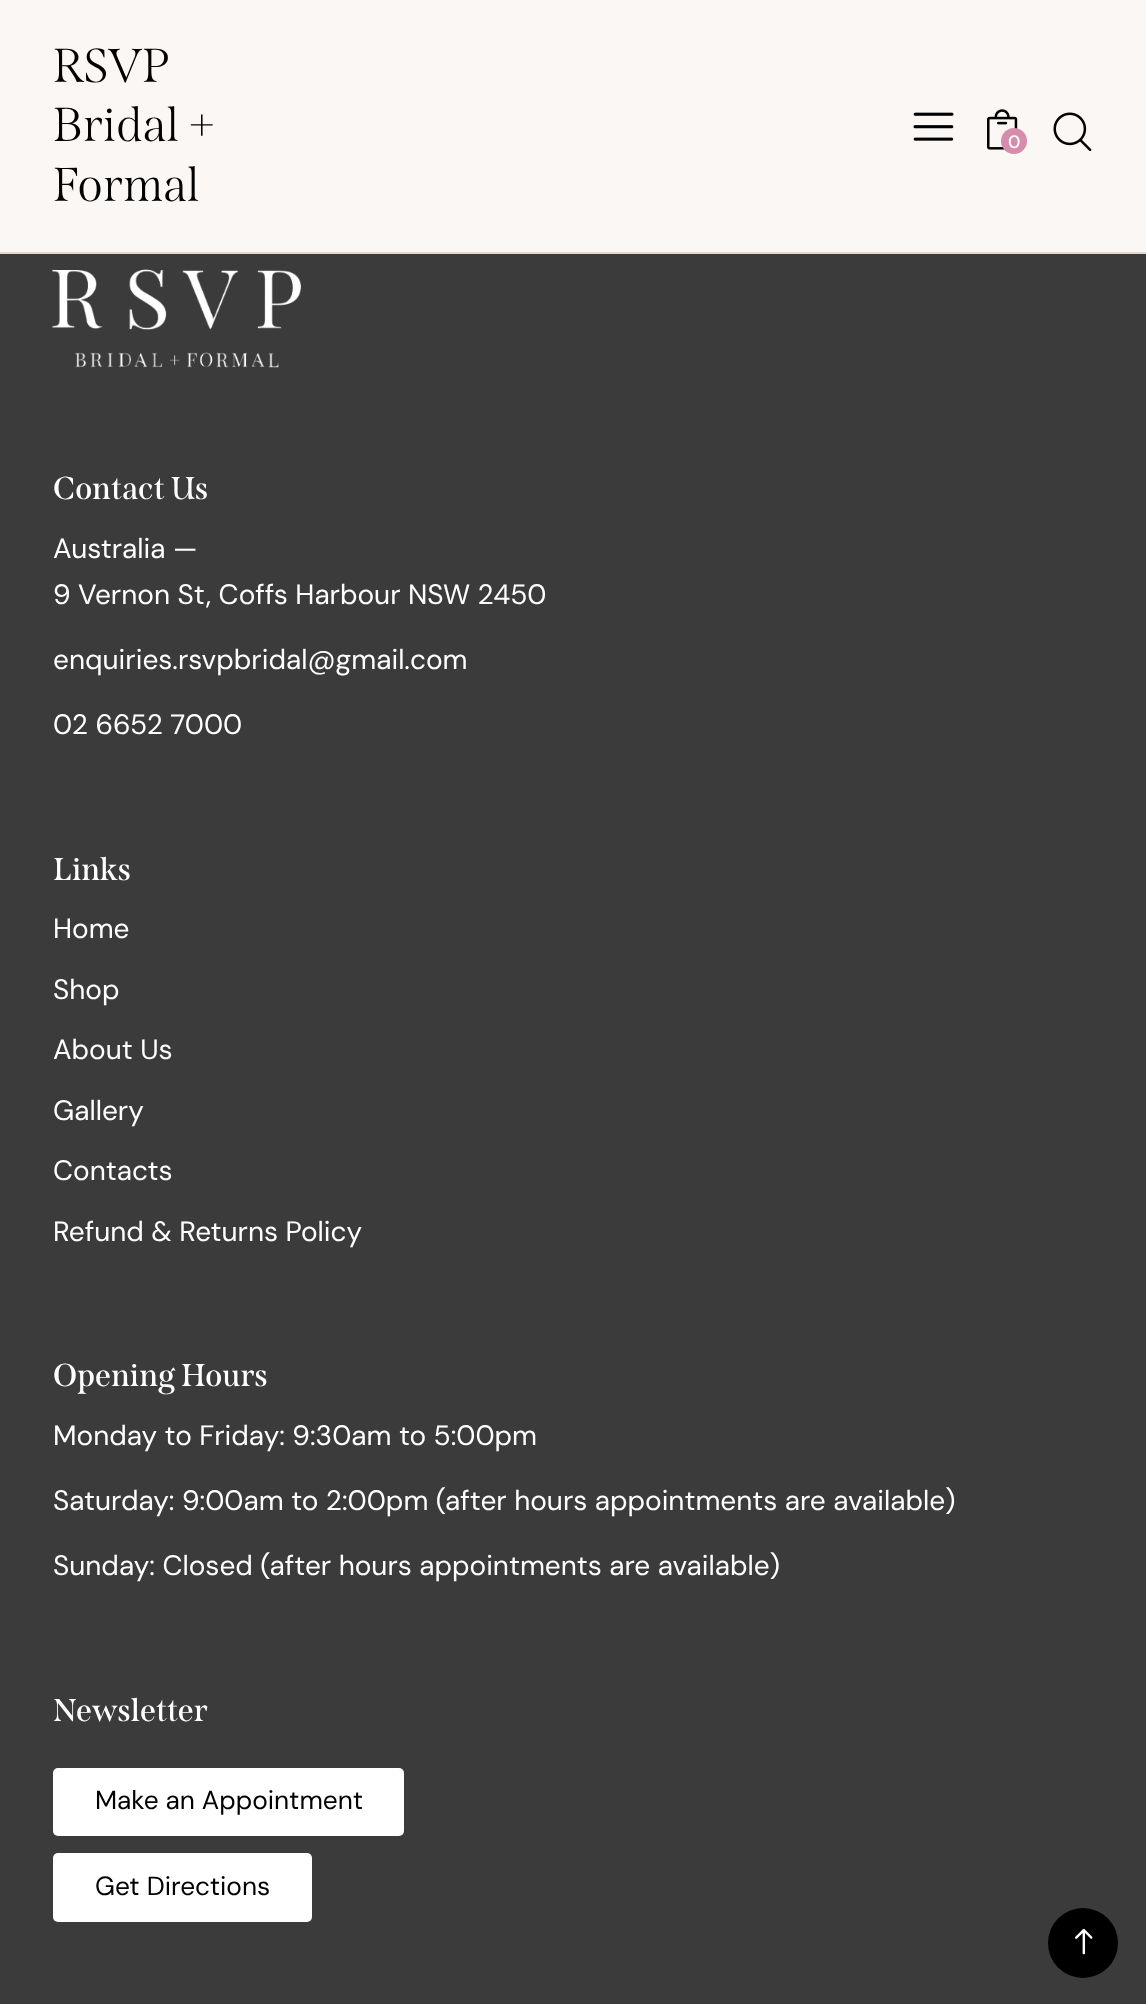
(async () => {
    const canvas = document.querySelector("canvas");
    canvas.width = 1146;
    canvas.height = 2004;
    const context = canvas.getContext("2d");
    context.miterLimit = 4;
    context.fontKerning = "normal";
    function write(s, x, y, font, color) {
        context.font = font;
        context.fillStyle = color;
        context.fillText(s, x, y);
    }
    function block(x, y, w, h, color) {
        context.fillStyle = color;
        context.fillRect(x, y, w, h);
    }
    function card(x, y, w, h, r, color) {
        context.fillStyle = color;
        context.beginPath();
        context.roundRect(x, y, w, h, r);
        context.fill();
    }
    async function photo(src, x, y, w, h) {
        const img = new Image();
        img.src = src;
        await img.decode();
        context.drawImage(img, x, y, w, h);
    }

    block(0, 0, 1146, 2004, "rgb(60, 59, 59)");
    block(0, 0, 1146, 252, "rgb(251, 247, 244)");
    block(0, 252, 1146, 2, "rgb(227, 215, 204)");
    write("RSVP", 53, 82, "300 47.5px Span", "rgb(0, 0, 0)");
    write("Bridal +", 53, 141, "300 47.5px Span", "rgb(0, 0, 0)");
    write("Formal", 53, 201, "300 47.5px Span", "rgb(0, 0, 0)");
    await photo("media/1.png", 913, 112, 41, 29);
    await photo("media/2.png", 987, 109, 31, 41);
    context.fillStyle = "rgb(214, 140, 170)";
    context.beginPath();
    context.arc(1014, 141, 13, 0, Math.PI * 2);
    context.fill();
    write("0", 1008, 148, "500 18px DM Sans", "rgb(255, 255, 255)");
    await photo("media/3.png", 1053, 112, 39, 39);
    await photo("media/4.png", 52, 269, 249, 99);
    write("Contact Us", 53, 499, "600 31.5px Span", "rgb(255, 255, 255)");
    write("Australia —", 53, 558, "28px DM Sans", "rgb(255, 255, 255)");
    write("9 Vernon St, Coffs Harbour NSW 2450", 53, 604, "28px DM Sans", "rgb(255, 255, 255)");
    write("enquiries.rsvpbridal@gmail.com", 53, 669, "28px DM Sans", "rgb(255, 255, 255)");
    write("02 6652 7000", 53, 734, "28px DM Sans", "rgb(255, 255, 255)");
    write("Links", 53, 880, "600 31.5px Span", "rgb(255, 255, 255)");
    write("Home", 53, 938, "28px DM Sans", "rgb(255, 255, 255)");
    write("Shop", 53, 999, "28px DM Sans", "rgb(255, 255, 255)");
    write("About Us", 53, 1059, "28px DM Sans", "rgb(255, 255, 255)");
    write("Gallery", 53, 1120, "28px DM Sans", "rgb(255, 255, 255)");
    write("Contacts", 53, 1180, "28px DM Sans", "rgb(255, 255, 255)");
    write("Refund & Returns Policy", 53, 1241, "28px DM Sans", "rgb(255, 255, 255)");
    write("Opening Hours", 53, 1386, "600 31.5px Span", "rgb(255, 255, 255)");
    write("Monday to Friday: 9:30am to 5:00pm", 53, 1445, "28px DM Sans", "rgb(255, 255, 255)");
    write("Saturday: 9:00am to 2:00pm (after hours appointments are available)", 53, 1510, "28px DM Sans", "rgb(255, 255, 255)");
    write("Sunday: Closed (after hours appointments are available)", 53, 1575, "28px DM Sans", "rgb(255, 255, 255)");
    write("Newsletter", 53, 1721, "600 31.5px Span", "rgb(255, 255, 255)");
    card(53, 1768, 351, 68, 5, "rgb(255, 255, 255)");
    write("Make an Appointment", 95, 1809, "26.25px DM Sans", "rgb(0, 0, 0)");
    card(53, 1853, 259, 69, 5, "rgb(255, 255, 255)");
    write("Get Directions", 95, 1895, "26.25px DM Sans", "rgb(0, 0, 0)");
    context.beginPath();
    context.arc(1083, 1943, 35, 0, Math.PI * 2);
    context.fill();
    await photo("media/5.png", 1075, 1928, 18, 27);
})();
